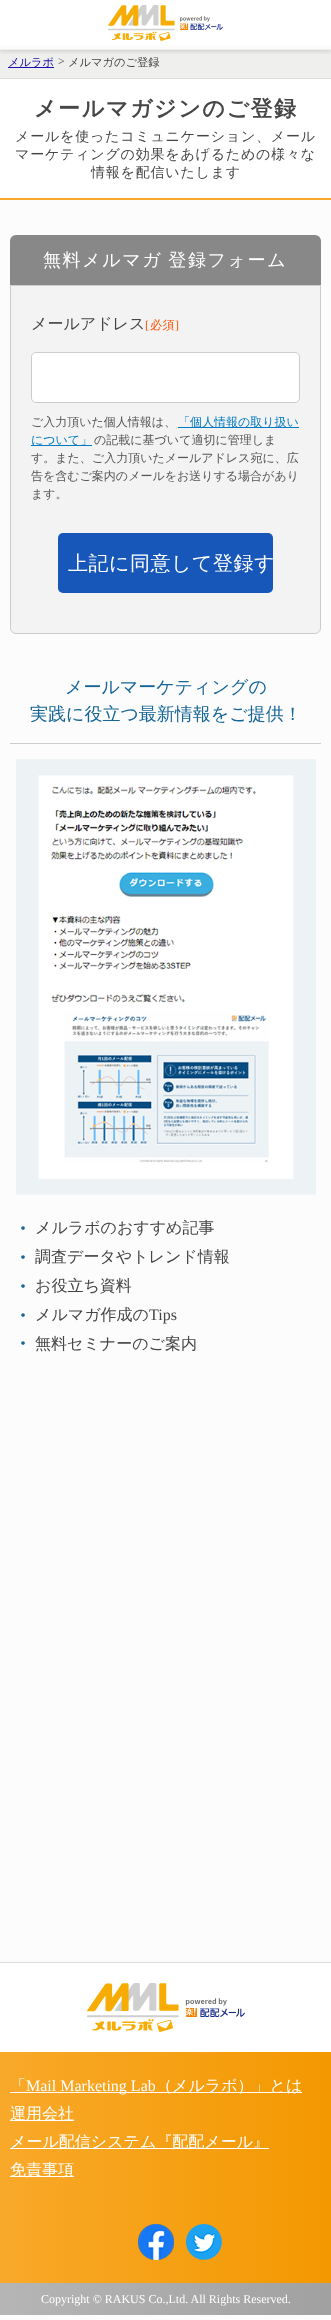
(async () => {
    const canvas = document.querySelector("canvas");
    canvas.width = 331;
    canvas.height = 2320;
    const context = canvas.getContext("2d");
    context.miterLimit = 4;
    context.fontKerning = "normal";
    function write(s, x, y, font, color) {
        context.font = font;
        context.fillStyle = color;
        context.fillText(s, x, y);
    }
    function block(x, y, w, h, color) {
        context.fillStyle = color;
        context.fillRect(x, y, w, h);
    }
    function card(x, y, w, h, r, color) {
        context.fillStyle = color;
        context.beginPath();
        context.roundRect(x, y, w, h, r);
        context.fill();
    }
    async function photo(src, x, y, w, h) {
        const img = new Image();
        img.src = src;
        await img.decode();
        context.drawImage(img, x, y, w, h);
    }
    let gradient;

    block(0, 0, 331, 2320, "rgb(252, 252, 252)");
    block(0, 0, 331, 45, "rgb(255, 255, 255)");
    block(0, 50, 331, 28, "rgb(239, 239, 237)");
    context.save();
    context.beginPath();
    context.rect(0, 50, 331, 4);
    context.clip();
    context.fillStyle = "rgba(0, 0, 0, 0.15)";
    context.filter = "blur(2.5px)";
    context.beginPath();
    context.rect(0, 1, 331, 50);
    context.fill();
    context.filter = "none";
    context.restore();
    block(0, 49, 331, 1, "rgb(240, 240, 240)");
    await photo("media/1.png", 108, 5, 115, 36);
    block(8, 67, 46, 1, "rgb(26, 13, 171)");
    write("メルラボ", 8, 66, "500 11.25px WenQuanYi Zen Hei", "rgb(26, 13, 171)");
    write(">", 58, 65, "12px Liberation Serif", "rgb(70, 70, 70)");
    write("メルマガのご登録", 68, 66, "500 11.25px WenQuanYi Zen Hei", "rgb(70, 70, 70)");
    block(0, 79, 331, 119, "rgb(255, 255, 255)");
    block(0, 78, 331, 1, "rgb(221, 221, 221)");
    block(0, 198, 331, 2, "rgb(249, 169, 42)");
    context.letterSpacing = "1.6px";
    write("メールマガジンのご登録", 34, 116, "bold 22px WenQuanYi Zen Hei", "rgb(70, 70, 70)");
    context.letterSpacing = "0.8px";
    write("メールを使ったコミュニケーション、メール", 15, 141, "500 14px WenQuanYi Zen Hei", "rgb(70, 70, 70)");
    write("マーケティングの効果をあげるための様々な", 15, 159, "500 14px WenQuanYi Zen Hei", "rgb(70, 70, 70)");
    write("情報を配信いたします", 91, 177, "500 14px WenQuanYi Zen Hei", "rgb(70, 70, 70)");
    context.fillStyle = "rgb(136, 136, 136)";
    context.beginPath();
    context.roundRect(10, 235, 311, 50, [6, 6, 0, 0]);
    context.fill();
    context.letterSpacing = "1.6px";
    context.wordSpacing = "-1px";
    write("無料メルマガ 登録フォーム", 43, 266, "500 18px WenQuanYi Zen Hei", "rgb(255, 255, 255)");
    context.fillStyle = "rgb(243, 243, 243)";
    context.beginPath();
    context.roundRect(10.5, 285.5, 310, 348, [0, 0, 5.5, 5.5]);
    context.fill();
    context.strokeStyle = "rgb(204, 204, 204)";
    context.stroke();
    context.letterSpacing = "0px";
    context.wordSpacing = "0px";
    write("メールアドレス", 31, 329, "500 16px WenQuanYi Zen Hei", "rgb(70, 70, 70)");
    context.letterSpacing = "0.5px";
    write("[", 145, 329, "12px Liberation Serif", "rgb(255, 80, 0)");
    write("必須", 150, 329, "500 12px WenQuanYi Zen Hei", "rgb(255, 80, 0)");
    write("]", 175, 329, "12px Liberation Serif", "rgb(255, 80, 0)");
    context.fillStyle = "rgb(255, 255, 255)";
    context.beginPath();
    context.roundRect(31.5, 352.5, 268, 50, 4.5);
    context.fill();
    context.stroke();
    context.letterSpacing = "0px";
    write("ご入力頂いた個人情報は、", 31, 426, "500 12px WenQuanYi Zen Hei", "rgb(85, 85, 85)");
    block(178, 427, 121, 1, "rgb(1, 121, 197)");
    write("「個人情報の取り扱い", 178, 426, "500 12px WenQuanYi Zen Hei", "rgb(1, 121, 197)");
    block(31, 445, 61, 1, "rgb(1, 121, 197)");
    write("について」", 31, 444, "500 12px WenQuanYi Zen Hei", "rgb(1, 121, 197)");
    write("の記載に基づいて適切に管理しま", 94, 444, "500 12px WenQuanYi Zen Hei", "rgb(85, 85, 85)");
    write("す。また、ご入力頂いたメールアドレス宛に、広", 31, 462, "500 12px WenQuanYi Zen Hei", "rgb(85, 85, 85)");
    write("告を含むご案内のメールをお送りする場合があり", 31, 480, "500 12px WenQuanYi Zen Hei", "rgb(85, 85, 85)");
    write("ます。", 31, 498, "500 12px WenQuanYi Zen Hei", "rgb(85, 85, 85)");
    card(58, 533, 215, 60, 5, "rgb(23, 87, 185)");
    context.letterSpacing = "0.5px";
    write("上記に同意して登録す", 68, 570, "500 20px WenQuanYi Zen Hei", "rgb(255, 255, 255)");
    block(10, 743, 311, 1, "rgb(204, 204, 204)");
    context.letterSpacing = "0px";
    write("メールマーケティングの", 65, 693, "500 18px WenQuanYi Zen Hei", "rgb(22, 101, 150)");
    write("実践に役立つ最新情報をご提供！", 30, 720, "500 18px WenQuanYi Zen Hei", "rgb(22, 101, 150)");
    await photo("media/2.png", 16, 759, 300, 436);
    write("・", 13, 1235, "bold 19px WenQuanYi Zen Hei", "rgb(22, 101, 150)");
    write("メルラボのおすすめ記事", 35, 1233, "500 16px WenQuanYi Zen Hei", "rgb(70, 70, 70)");
    write("・", 13, 1264, "bold 19px WenQuanYi Zen Hei", "rgb(22, 101, 150)");
    write("調査データやトレンド情報", 35, 1262, "500 16px WenQuanYi Zen Hei", "rgb(70, 70, 70)");
    write("・", 13, 1293, "bold 19px WenQuanYi Zen Hei", "rgb(22, 101, 150)");
    write("お役立ち資料", 35, 1291, "500 16px WenQuanYi Zen Hei", "rgb(70, 70, 70)");
    write("・", 13, 1322, "bold 19px WenQuanYi Zen Hei", "rgb(22, 101, 150)");
    write("メルマガ作成の", 35, 1320, "500 16px WenQuanYi Zen Hei", "rgb(70, 70, 70)");
    write("Tips", 149, 1320, "16px Liberation Serif", "rgb(70, 70, 70)");
    write("・", 13, 1350, "bold 19px WenQuanYi Zen Hei", "rgb(22, 101, 150)");
    write("無料セミナーのご案内", 35, 1349, "500 16px WenQuanYi Zen Hei", "rgb(70, 70, 70)");
    gradient = context.createLinearGradient(0, 2139, 331, 2139);
    gradient.addColorStop(0, "rgb(249, 169, 42)");
    gradient.addColorStop(1, "rgb(243, 152, 0)");
    context.fillStyle = gradient;
    context.fillRect(0, 2052, 331, 231);
    block(0, 1962, 331, 1, "rgb(221, 221, 221)");
    block(0, 1963, 331, 89, "rgb(255, 255, 255)");
    await photo("media/3.png", 87, 1983, 158, 49);
    write("「", 10, 2091, "500 16px WenQuanYi Zen Hei", "rgb(255, 255, 255)");
    block(10, 2092, 292, 1, "rgb(255, 255, 255)");
    write("Mail Marketing Lab", 26, 2091, "16px Liberation Serif", "rgb(255, 255, 255)");
    write("（メルラボ）」とは", 156, 2091, "500 16px WenQuanYi Zen Hei", "rgb(255, 255, 255)");
    block(10, 2120, 64, 1, "rgb(255, 255, 255)");
    write("運用会社", 10, 2119, "500 16px WenQuanYi Zen Hei", "rgb(255, 255, 255)");
    block(10, 2148, 259, 1, "rgb(255, 255, 255)");
    write("メール配信システム『配配メール』", 10, 2147, "500 16px WenQuanYi Zen Hei", "rgb(255, 255, 255)");
    block(10, 2176, 64, 1, "rgb(255, 255, 255)");
    write("免責事項", 10, 2175, "500 16px WenQuanYi Zen Hei", "rgb(255, 255, 255)");
    await photo("media/4.png", 138, 2224, 36, 36);
    await photo("media/5.png", 186, 2224, 36, 36);
    gradient = context.createLinearGradient(0, 2299, 331, 2299);
    gradient.addColorStop(0, "rgb(181, 181, 181)");
    gradient.addColorStop(1, "rgb(161, 161, 161)");
    context.fillStyle = gradient;
    context.fillRect(0, 2283, 331, 32);
    write("Copyright © RAKUS Co.,Ltd. All Rights Reserved.", 41, 2303, "12px Liberation Serif", "rgb(255, 255, 255)");
})();
